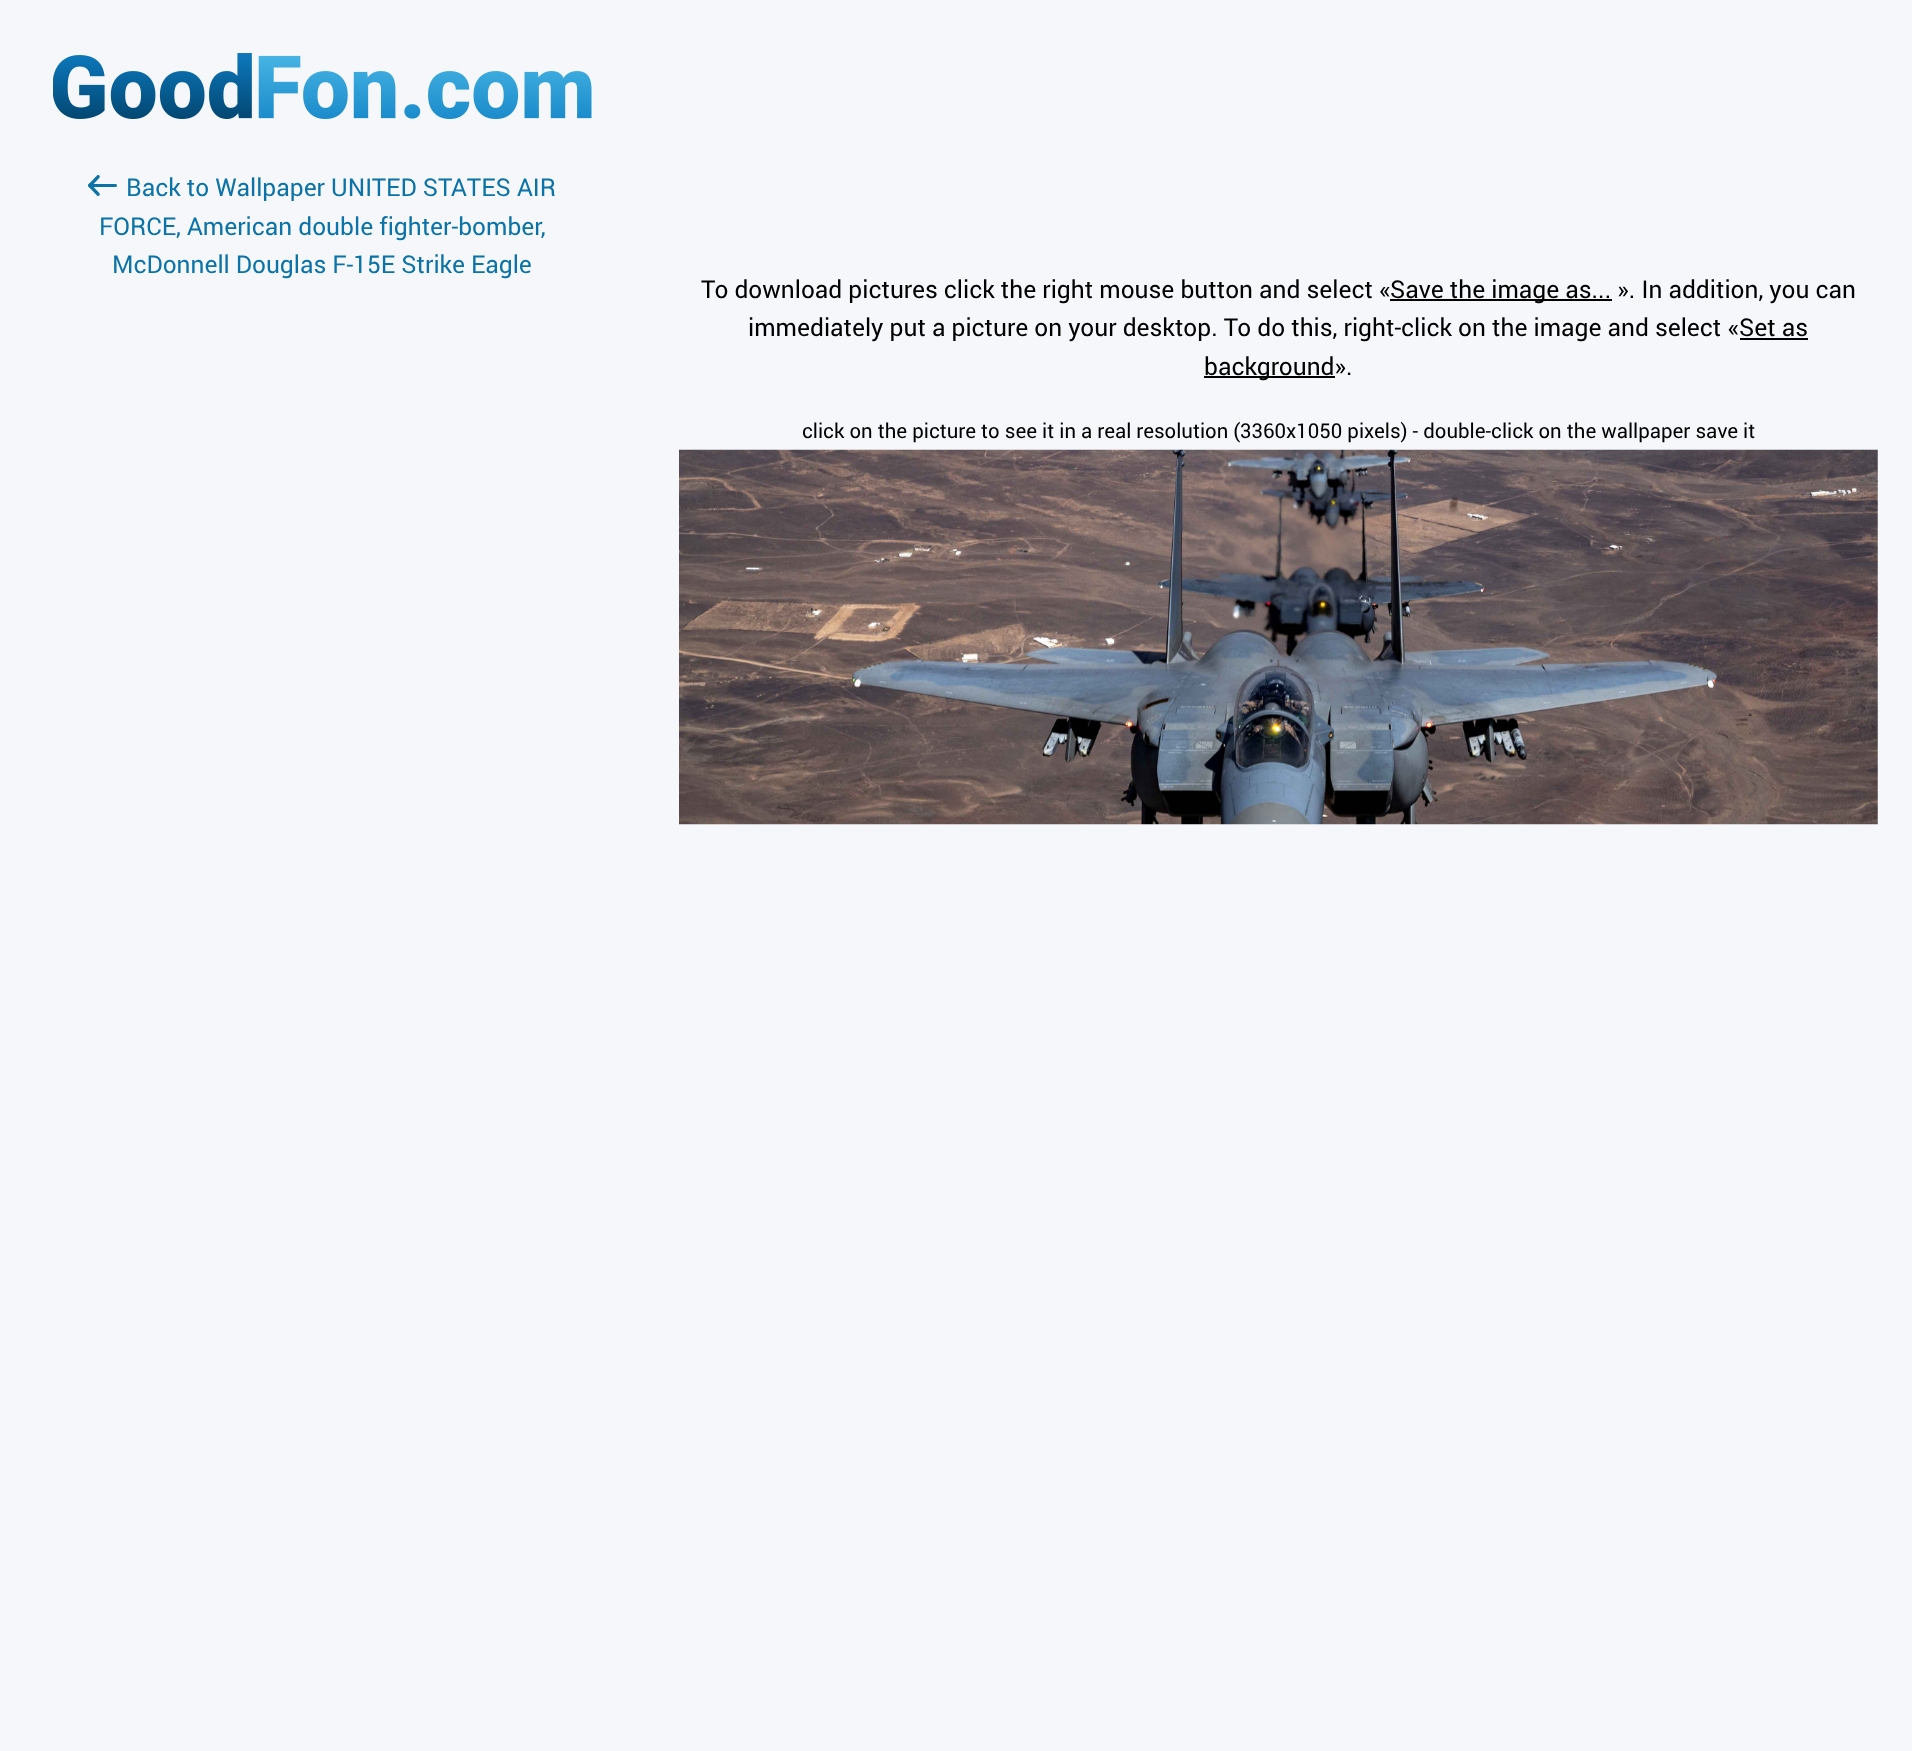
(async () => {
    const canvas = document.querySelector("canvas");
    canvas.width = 1912;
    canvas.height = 1751;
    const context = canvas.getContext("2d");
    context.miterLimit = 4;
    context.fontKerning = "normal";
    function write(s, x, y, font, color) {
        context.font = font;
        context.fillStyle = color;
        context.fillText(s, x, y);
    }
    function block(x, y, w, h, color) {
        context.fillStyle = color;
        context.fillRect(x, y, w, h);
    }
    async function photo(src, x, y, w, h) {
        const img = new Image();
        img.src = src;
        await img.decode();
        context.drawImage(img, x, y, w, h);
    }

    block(0, 0, 1912, 1751, "rgb(245, 247, 250)");
    await photo("media/1.png", 53, 53, 539, 66);
    await photo("media/2.png", 88, 175, 29, 21);
    write("Back to Wallpaper UNITED STATES AIR", 126, 196, "24.5px Roboto", "rgb(12, 115, 169)");
    write("FORCE, American double fighter-bomber,", 99, 235, "24.5px Roboto", "rgb(12, 115, 169)");
    write("McDonnell Douglas F-15E Strike Eagle", 112, 273, "24.5px Roboto", "rgb(12, 115, 169)");
    write("To download pictures click the right mouse button and select «", 701, 298, "24.5px Roboto", "rgb(0, 0, 0)");
    block(1390, 299, 222, 2, "rgb(0, 0, 0)");
    write("Save the image as... ». In addition, you can", 1390, 298, "24.5px Roboto", "rgb(0, 0, 0)");
    write("immediately put a picture on your desktop. To do this, right-click on the image and select «Set as", 748, 336, "24.5px Roboto", "rgb(0, 0, 0)");
    block(1204, 376, 131, 2, "rgb(0, 0, 0)");
    write("background».", 1204, 375, "24.5px Roboto", "rgb(0, 0, 0)");
    block(1740, 338, 68, 2, "rgb(0, 0, 0)");
    write("click on the picture to see it in a real resolution (3360x1050 pixels) - double-click on the wallpaper save it", 802, 438, "20.4px Roboto", "rgb(0, 0, 0)");
    await photo("media/3.png", 679, 449, 1199, 376);
})();
